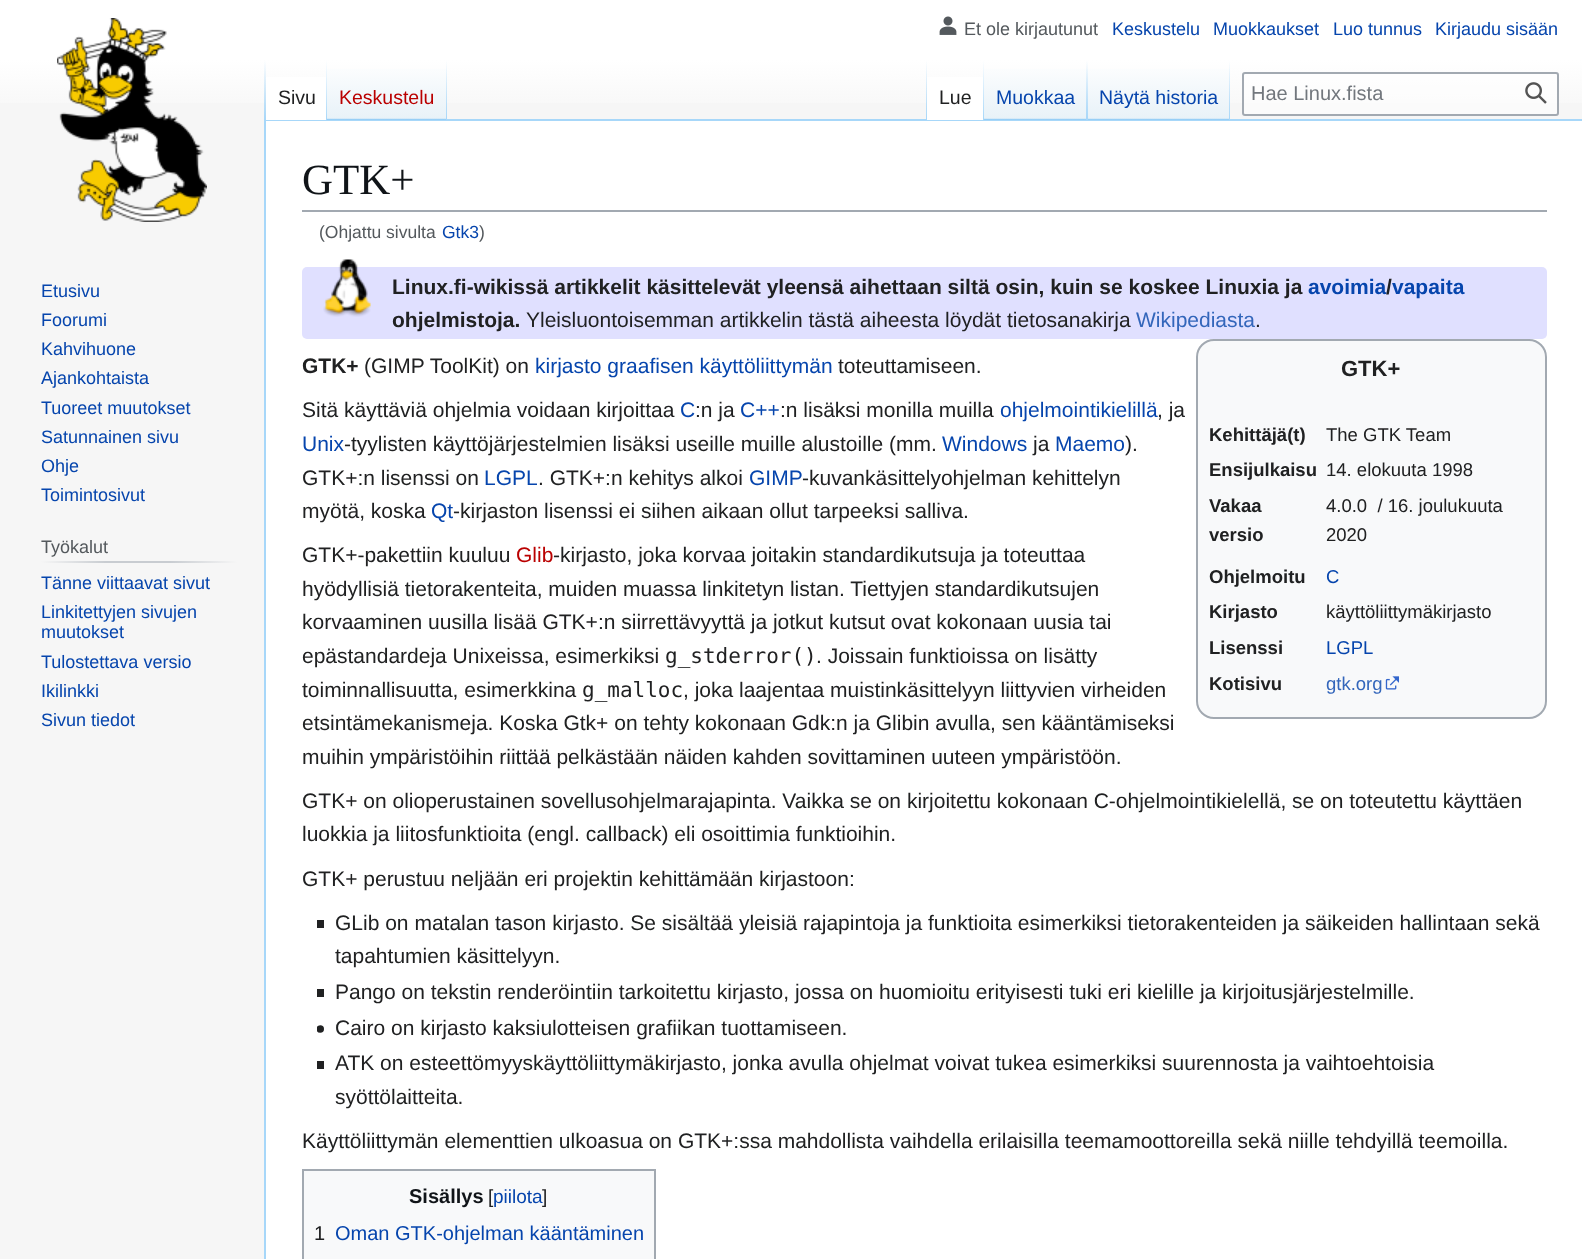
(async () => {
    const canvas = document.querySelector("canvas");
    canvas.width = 1582;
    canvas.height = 1259;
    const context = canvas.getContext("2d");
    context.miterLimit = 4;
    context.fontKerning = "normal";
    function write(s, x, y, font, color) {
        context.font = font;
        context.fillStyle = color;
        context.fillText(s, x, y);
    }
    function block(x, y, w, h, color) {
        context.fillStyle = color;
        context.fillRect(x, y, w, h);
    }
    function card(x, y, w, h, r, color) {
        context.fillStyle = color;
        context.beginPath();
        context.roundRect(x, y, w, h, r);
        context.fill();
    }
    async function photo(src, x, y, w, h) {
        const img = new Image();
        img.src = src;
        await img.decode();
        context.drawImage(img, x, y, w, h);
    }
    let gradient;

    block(0, 0, 1582, 1259, "rgb(246, 246, 246)");
    gradient = context.createLinearGradient(791, 0, 791, 120);
    gradient.addColorStop(0.5, "rgb(255, 255, 255)");
    gradient.addColorStop(1, "rgb(246, 246, 246)");
    context.fillStyle = gradient;
    context.fillRect(0, 0, 1582, 103);
    await photo("media/1.png", 939, 16, 18, 19);
    write("Et ole kirjautunut", 964, 35, "18px Liberation Sans", "rgb(84, 89, 93)");
    write("Keskustelu", 1112, 35, "18px Liberation Sans", "rgb(6, 69, 173)");
    write("Muokkaukset", 1213, 35, "18px Liberation Sans", "rgb(6, 69, 173)");
    write("Luo tunnus", 1333, 35, "18px Liberation Sans", "rgb(6, 69, 173)");
    write("Kirjaudu sisään", 1435, 35, "18px Liberation Sans", "rgb(6, 69, 173)");
    block(264, 119, 1318, 2, "rgb(167, 215, 249)");
    block(264, 119, 2, 1140, "rgb(167, 215, 249)");
    gradient = context.createLinearGradient(265, 60, 265, 120);
    gradient.addColorStop(0, "rgba(167, 215, 249, 0)");
    gradient.addColorStop(1, "rgb(167, 215, 249)");
    context.fillStyle = gradient;
    context.fillRect(264, 60, 2, 60);
    block(266, 77, 60, 43, "rgb(255, 255, 255)");
    gradient = context.createLinearGradient(326, 60, 326, 120);
    gradient.addColorStop(0, "rgb(255, 255, 255)");
    gradient.addColorStop(1, "rgb(167, 215, 249)");
    context.fillStyle = gradient;
    context.fillRect(326, 60, 1, 60);
    write("Sivu", 278, 104, "19.5px Liberation Sans", "rgb(32, 33, 34)");
    gradient = context.createLinearGradient(387, 120, 387, 60);
    gradient.addColorStop(0, "rgb(119, 193, 246)");
    gradient.addColorStop(0.03, "rgb(232, 242, 248)");
    gradient.addColorStop(1, "rgb(255, 255, 255)");
    context.fillStyle = gradient;
    context.fillRect(327, 69, 120, 51);
    gradient = context.createLinearGradient(446, 60, 446, 120);
    gradient.addColorStop(0, "rgba(167, 215, 249, 0)");
    gradient.addColorStop(1, "rgb(167, 215, 249)");
    context.fillStyle = gradient;
    context.fillRect(446, 60, 1, 60);
    write("Keskustelu", 339, 104, "19.5px Liberation Sans", "rgb(186, 0, 0)");
    gradient = context.createLinearGradient(926, 60, 926, 120);
    gradient.addColorStop(0, "rgba(167, 215, 249, 0)");
    gradient.addColorStop(1, "rgb(167, 215, 249)");
    context.fillStyle = gradient;
    context.fillRect(926, 60, 1, 60);
    block(927, 77, 56, 43, "rgb(255, 255, 255)");
    gradient = context.createLinearGradient(983, 60, 983, 120);
    gradient.addColorStop(0, "rgb(255, 255, 255)");
    gradient.addColorStop(1, "rgb(167, 215, 249)");
    context.fillStyle = gradient;
    context.fillRect(983, 60, 1, 60);
    write("Lue", 939, 104, "19.5px Liberation Sans", "rgb(32, 33, 34)");
    gradient = context.createLinearGradient(1036, 120, 1036, 60);
    gradient.addColorStop(0, "rgb(119, 193, 246)");
    gradient.addColorStop(0.03, "rgb(232, 242, 248)");
    gradient.addColorStop(1, "rgb(255, 255, 255)");
    context.fillStyle = gradient;
    context.fillRect(984, 69, 104, 51);
    gradient = context.createLinearGradient(1087, 60, 1087, 120);
    gradient.addColorStop(0, "rgba(167, 215, 249, 0)");
    gradient.addColorStop(1, "rgb(167, 215, 249)");
    context.fillStyle = gradient;
    context.fillRect(1086, 60, 2, 60);
    write("Muokkaa", 996, 104, "19.5px Liberation Sans", "rgb(6, 69, 173)");
    gradient = context.createLinearGradient(1159, 120, 1159, 60);
    gradient.addColorStop(0, "rgb(119, 193, 246)");
    gradient.addColorStop(0.03, "rgb(232, 242, 248)");
    gradient.addColorStop(1, "rgb(255, 255, 255)");
    context.fillStyle = gradient;
    context.fillRect(1088, 69, 142, 51);
    gradient = context.createLinearGradient(1229, 60, 1229, 120);
    gradient.addColorStop(0, "rgba(167, 215, 249, 0)");
    gradient.addColorStop(1, "rgb(167, 215, 249)");
    context.fillStyle = gradient;
    context.fillRect(1229, 60, 1, 60);
    write("Näytä historia", 1099, 104, "19.5px Liberation Sans", "rgb(6, 69, 173)");
    context.fillStyle = "rgba(255, 255, 255, 0.5)";
    context.beginPath();
    context.roundRect(1243, 73, 315, 42, 2);
    context.fill();
    context.strokeStyle = "rgb(162, 169, 177)";
    context.lineWidth = 2;
    context.stroke();
    write("Hae Linux.fista", 1251, 100, "20px Liberation Sans", "rgb(114, 119, 125)");
    await photo("media/2.png", 1525, 82, 22, 22);
    await photo("media/3.png", 57, 18, 150, 204);
    write("Etusivu", 41, 297, "18px Liberation Sans", "rgb(6, 69, 173)");
    write("Foorumi", 41, 326, "18px Liberation Sans", "rgb(6, 69, 173)");
    write("Kahvihuone", 41, 355, "18px Liberation Sans", "rgb(6, 69, 173)");
    write("Ajankohtaista", 41, 384, "18px Liberation Sans", "rgb(6, 69, 173)");
    write("Tuoreet muutokset", 41, 414, "18px Liberation Sans", "rgb(6, 69, 173)");
    write("Satunnainen sivu", 41, 443, "18px Liberation Sans", "rgb(6, 69, 173)");
    write("Ohje", 41, 472, "18px Liberation Sans", "rgb(6, 69, 173)");
    write("Toimintosivut", 41, 501, "18px Liberation Sans", "rgb(6, 69, 173)");
    gradient = context.createLinearGradient(41, 562, 237, 562);
    gradient.addColorStop(0, "rgb(246, 246, 246)");
    gradient.addColorStop(0.33, "rgb(200, 204, 209)");
    gradient.addColorStop(0.66, "rgb(200, 204, 209)");
    gradient.addColorStop(1, "rgb(246, 246, 246)");
    context.fillStyle = gradient;
    context.fillRect(41, 561, 196, 2);
    write("Työkalut", 41, 553, "18px Liberation Sans", "rgb(84, 89, 93)");
    write("Tänne viittaavat sivut", 41, 589, "18px Liberation Sans", "rgb(6, 69, 173)");
    write("Linkitettyjen sivujen", 41, 618, "18px Liberation Sans", "rgb(6, 69, 173)");
    write("muutokset", 41, 638, "18px Liberation Sans", "rgb(6, 69, 173)");
    write("Tulostettava versio", 41, 668, "18px Liberation Sans", "rgb(6, 69, 173)");
    write("Ikilinkki", 41, 697, "18px Liberation Sans", "rgb(6, 69, 173)");
    write("Sivun tiedot", 41, 726, "18px Liberation Sans", "rgb(6, 69, 173)");
    block(266, 121, 1316, 1138, "rgb(255, 255, 255)");
    block(302, 210, 1245, 2, "rgb(162, 169, 177)");
    write("GTK+", 302, 194, "43px Liberation Serif", "rgb(16, 20, 24)");
    write("(Ohjattu sivulta", 319, 238, "17.5px Liberation Sans", "rgb(84, 89, 93)");
    write("Gtk3", 442, 238, "17.5px Liberation Sans", "rgb(6, 69, 173)");
    write(")", 479, 238, "17.5px Liberation Sans", "rgb(84, 89, 93)");
    card(302, 267, 1245, 72, 5, "rgb(224, 224, 255)");
    await photo("media/4.png", 323, 259, 48, 58);
    write("Linux.fi-wikissä artikkelit käsittelevät yleensä aihettaan siltä osin, kuin se koskee Linuxia ja", 392, 294, "bold 21px Liberation Sans", "rgb(32, 33, 34)");
    write("avoimia", 1308, 294, "bold 21px Liberation Sans", "rgb(6, 69, 173)");
    write("/", 1386, 294, "bold 21px Liberation Sans", "rgb(32, 33, 34)");
    write("vapaita", 1392, 294, "bold 21px Liberation Sans", "rgb(6, 69, 173)");
    write("ohjelmistoja.", 392, 327, "bold 21px Liberation Sans", "rgb(32, 33, 34)");
    write("Yleisluontoisemman artikkelin tästä aiheesta löydät tietosanakirja", 526, 327, "21px Liberation Sans", "rgb(32, 33, 34)");
    write("Wikipediasta", 1136, 327, "21px Liberation Sans", "rgb(51, 102, 187)");
    write(".", 1255, 327, "21px Liberation Sans", "rgb(32, 33, 34)");
    write("GTK+", 302, 373, "bold 21px Liberation Sans", "rgb(32, 33, 34)");
    write("(GIMP ToolKit) on", 364, 373, "21px Liberation Sans", "rgb(32, 33, 34)");
    write("kirjasto graafisen käyttöliittymän", 535, 373, "21px Liberation Sans", "rgb(6, 69, 173)");
    write("toteuttamiseen.", 838, 373, "21px Liberation Sans", "rgb(32, 33, 34)");
    context.fillStyle = "rgb(248, 249, 250)";
    context.beginPath();
    context.roundRect(1197, 340, 349, 378, 17);
    context.fill();
    context.stroke();
    write("GTK+", 1341, 376, "bold 22px Liberation Sans", "rgb(32, 33, 34)");
    write("Kehittäjä(t)", 1209, 441, "bold 18.5px Liberation Sans", "rgb(32, 33, 34)");
    write("The GTK Team", 1326, 441, "18.5px Liberation Sans", "rgb(32, 33, 34)");
    write("Ensijulkaisu", 1209, 476, "bold 18.5px Liberation Sans", "rgb(32, 33, 34)");
    write("14. elokuuta 1998", 1326, 476, "18.5px Liberation Sans", "rgb(32, 33, 34)");
    write("Vakaa", 1209, 512, "bold 18.5px Liberation Sans", "rgb(32, 33, 34)");
    write("versio", 1209, 541, "bold 18.5px Liberation Sans", "rgb(32, 33, 34)");
    write("4.0.0  / 16. joulukuuta", 1326, 512, "18.5px Liberation Sans", "rgb(32, 33, 34)");
    write("2020", 1326, 541, "18.5px Liberation Sans", "rgb(32, 33, 34)");
    write("Ohjelmoitu", 1209, 583, "bold 18.5px Liberation Sans", "rgb(32, 33, 34)");
    write("C", 1326, 583, "18.5px Liberation Sans", "rgb(6, 69, 173)");
    write("Kirjasto", 1209, 618, "bold 18.5px Liberation Sans", "rgb(32, 33, 34)");
    write("käyttöliittymäkirjasto", 1326, 618, "18.5px Liberation Sans", "rgb(32, 33, 34)");
    write("Lisenssi", 1209, 654, "bold 18.5px Liberation Sans", "rgb(32, 33, 34)");
    write("LGPL", 1326, 654, "18.5px Liberation Sans", "rgb(6, 69, 173)");
    write("Kotisivu", 1209, 690, "bold 18.5px Liberation Sans", "rgb(32, 33, 34)");
    write("gtk.org", 1326, 690, "18.5px Liberation Sans", "rgb(51, 102, 187)");
    await photo("media/5.png", 1385, 676, 14, 14);
    write("Sitä käyttäviä ohjelmia voidaan kirjoittaa", 302, 417, "21px Liberation Sans", "rgb(32, 33, 34)");
    write("C", 680, 417, "21px Liberation Sans", "rgb(6, 69, 173)");
    write(":n ja", 695, 417, "21px Liberation Sans", "rgb(32, 33, 34)");
    write("C++", 740, 417, "21px Liberation Sans", "rgb(6, 69, 173)");
    write(":n lisäksi monilla muilla", 780, 417, "21px Liberation Sans", "rgb(32, 33, 34)");
    write("ohjelmointikielillä", 1000, 417, "21px Liberation Sans", "rgb(6, 69, 173)");
    write(", ja", 1157, 417, "21px Liberation Sans", "rgb(32, 33, 34)");
    write("Unix", 302, 451, "21px Liberation Sans", "rgb(6, 69, 173)");
    write("-tyylisten käyttöjärjestelmien lisäksi useille muille alustoille (mm.", 344, 451, "21px Liberation Sans", "rgb(32, 33, 34)");
    write("Windows", 942, 451, "21px Liberation Sans", "rgb(6, 69, 173)");
    write("ja", 1033, 451, "21px Liberation Sans", "rgb(32, 33, 34)");
    write("Maemo", 1055, 451, "21px Liberation Sans", "rgb(6, 69, 173)");
    write(").", 1125, 451, "21px Liberation Sans", "rgb(32, 33, 34)");
    write("GTK+:n lisenssi on", 302, 485, "21px Liberation Sans", "rgb(32, 33, 34)");
    write("LGPL", 484, 485, "21px Liberation Sans", "rgb(6, 69, 173)");
    write(". GTK+:n kehitys alkoi", 538, 485, "21px Liberation Sans", "rgb(32, 33, 34)");
    write("GIMP", 749, 485, "21px Liberation Sans", "rgb(6, 69, 173)");
    write("-kuvankäsittelyohjelman kehittelyn", 802, 485, "21px Liberation Sans", "rgb(32, 33, 34)");
    write("myötä, koska", 302, 518, "21px Liberation Sans", "rgb(32, 33, 34)");
    write("Qt", 431, 518, "21px Liberation Sans", "rgb(6, 69, 173)");
    write("-kirjaston lisenssi ei siihen aikaan ollut tarpeeksi salliva.", 453, 518, "21px Liberation Sans", "rgb(32, 33, 34)");
    write("GTK+-pakettiin kuuluu", 302, 562, "21px Liberation Sans", "rgb(32, 33, 34)");
    write("Glib", 516, 562, "21px Liberation Sans", "rgb(186, 0, 0)");
    write("-kirjasto, joka korvaa joitakin standardikutsuja ja toteuttaa", 553, 562, "21px Liberation Sans", "rgb(32, 33, 34)");
    write("hyödyllisiä tietorakenteita, muiden muassa linkitetyn listan. Tiettyjen standardikutsujen", 302, 596, "21px Liberation Sans", "rgb(32, 33, 34)");
    write("korvaaminen uusilla lisää GTK+:n siirrettävyyttä ja jotkut kutsut ovat kokonaan uusia tai", 302, 629, "21px Liberation Sans", "rgb(32, 33, 34)");
    write("epästandardeja Unixeissa, esimerkiksi", 302, 663, "21px Liberation Sans", "rgb(32, 33, 34)");
    write("g_stderror()", 665, 663, "21px DejaVu Sans Mono", "rgb(32, 33, 34)");
    write(". Joissain funktioissa on lisätty", 816, 663, "21px Liberation Sans", "rgb(32, 33, 34)");
    write("toiminnallisuutta, esimerkkina", 302, 697, "21px Liberation Sans", "rgb(32, 33, 34)");
    write("g_malloc", 582, 697, "21px DejaVu Sans Mono", "rgb(32, 33, 34)");
    write(", joka laajentaa muistinkäsittelyyn liittyvien virheiden", 683, 697, "21px Liberation Sans", "rgb(32, 33, 34)");
    write("etsintämekanismeja. Koska Gtk+ on tehty kokonaan Gdk:n ja Glibin avulla, sen kääntämiseksi", 302, 730, "21px Liberation Sans", "rgb(32, 33, 34)");
    write("muihin ympäristöihin riittää pelkästään näiden kahden sovittaminen uuteen ympäristöön.", 302, 764, "21px Liberation Sans", "rgb(32, 33, 34)");
    write("GTK+ on olioperustainen sovellusohjelmarajapinta. Vaikka se on kirjoitettu kokonaan C-ohjelmointikielellä, se on toteutettu käyttäen", 302, 808, "21px Liberation Sans", "rgb(32, 33, 34)");
    write("luokkia ja liitosfunktioita (engl. callback) eli osoittimia funktioihin.", 302, 841, "21px Liberation Sans", "rgb(32, 33, 34)");
    write("GTK+ perustuu neljään eri projektin kehittämään kirjastoon:", 302, 886, "21px Liberation Sans", "rgb(32, 33, 34)");
    block(317, 920, 7, 8, "rgb(32, 33, 34)");
    write("GLib on matalan tason kirjasto. Se sisältää yleisiä rajapintoja ja funktioita esimerkiksi tietorakenteiden ja säikeiden hallintaan sekä", 335, 930, "21px Liberation Sans", "rgb(32, 33, 34)");
    write("tapahtumien käsittelyyn.", 335, 963, "21px Liberation Sans", "rgb(32, 33, 34)");
    block(317, 989, 7, 8, "rgb(32, 33, 34)");
    write("Pango on tekstin renderöintiin tarkoitettu kirjasto, jossa on huomioitu erityisesti tuki eri kielille ja kirjoitusjärjestelmille.", 335, 999, "21px Liberation Sans", "rgb(32, 33, 34)");
    await photo("media/6.png", 317, 1025, 7, 8);
    write("Cairo on kirjasto kaksiulotteisen grafiikan tuottamiseen.", 335, 1035, "21px Liberation Sans", "rgb(32, 33, 34)");
    block(317, 1061, 7, 8, "rgb(32, 33, 34)");
    write("ATK on esteettömyyskäyttöliittymäkirjasto, jonka avulla ohjelmat voivat tukea esimerkiksi suurennosta ja vaihtoehtoisia", 335, 1070, "21px Liberation Sans", "rgb(32, 33, 34)");
    write("syöttölaitteita.", 335, 1104, "21px Liberation Sans", "rgb(32, 33, 34)");
    write("Käyttöliittymän elementtien ulkoasua on GTK+:ssa mahdollista vaihdella erilaisilla teemamoottoreilla sekä niille tehdyillä teemoilla.", 302, 1148, "21px Liberation Sans", "rgb(32, 33, 34)");
    context.fillStyle = "rgb(248, 249, 250)";
    context.beginPath();
    context.rect(303, 1170, 352, 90);
    context.fill();
    context.stroke();
    write("Sisällys", 409, 1203, "bold 20px Liberation Sans", "rgb(16, 20, 24)");
    write("[", 488, 1203, "19px Liberation Sans", "rgb(32, 33, 34)");
    write("piilota", 493, 1203, "19px Liberation Sans", "rgb(6, 69, 173)");
    write("]", 542, 1203, "19px Liberation Sans", "rgb(32, 33, 34)");
    write("1", 314, 1240, "20px Liberation Sans", "rgb(32, 33, 34)");
    write("Oman GTK-ohjelman kääntäminen", 335, 1240, "20px Liberation Sans", "rgb(6, 69, 173)");
})();
